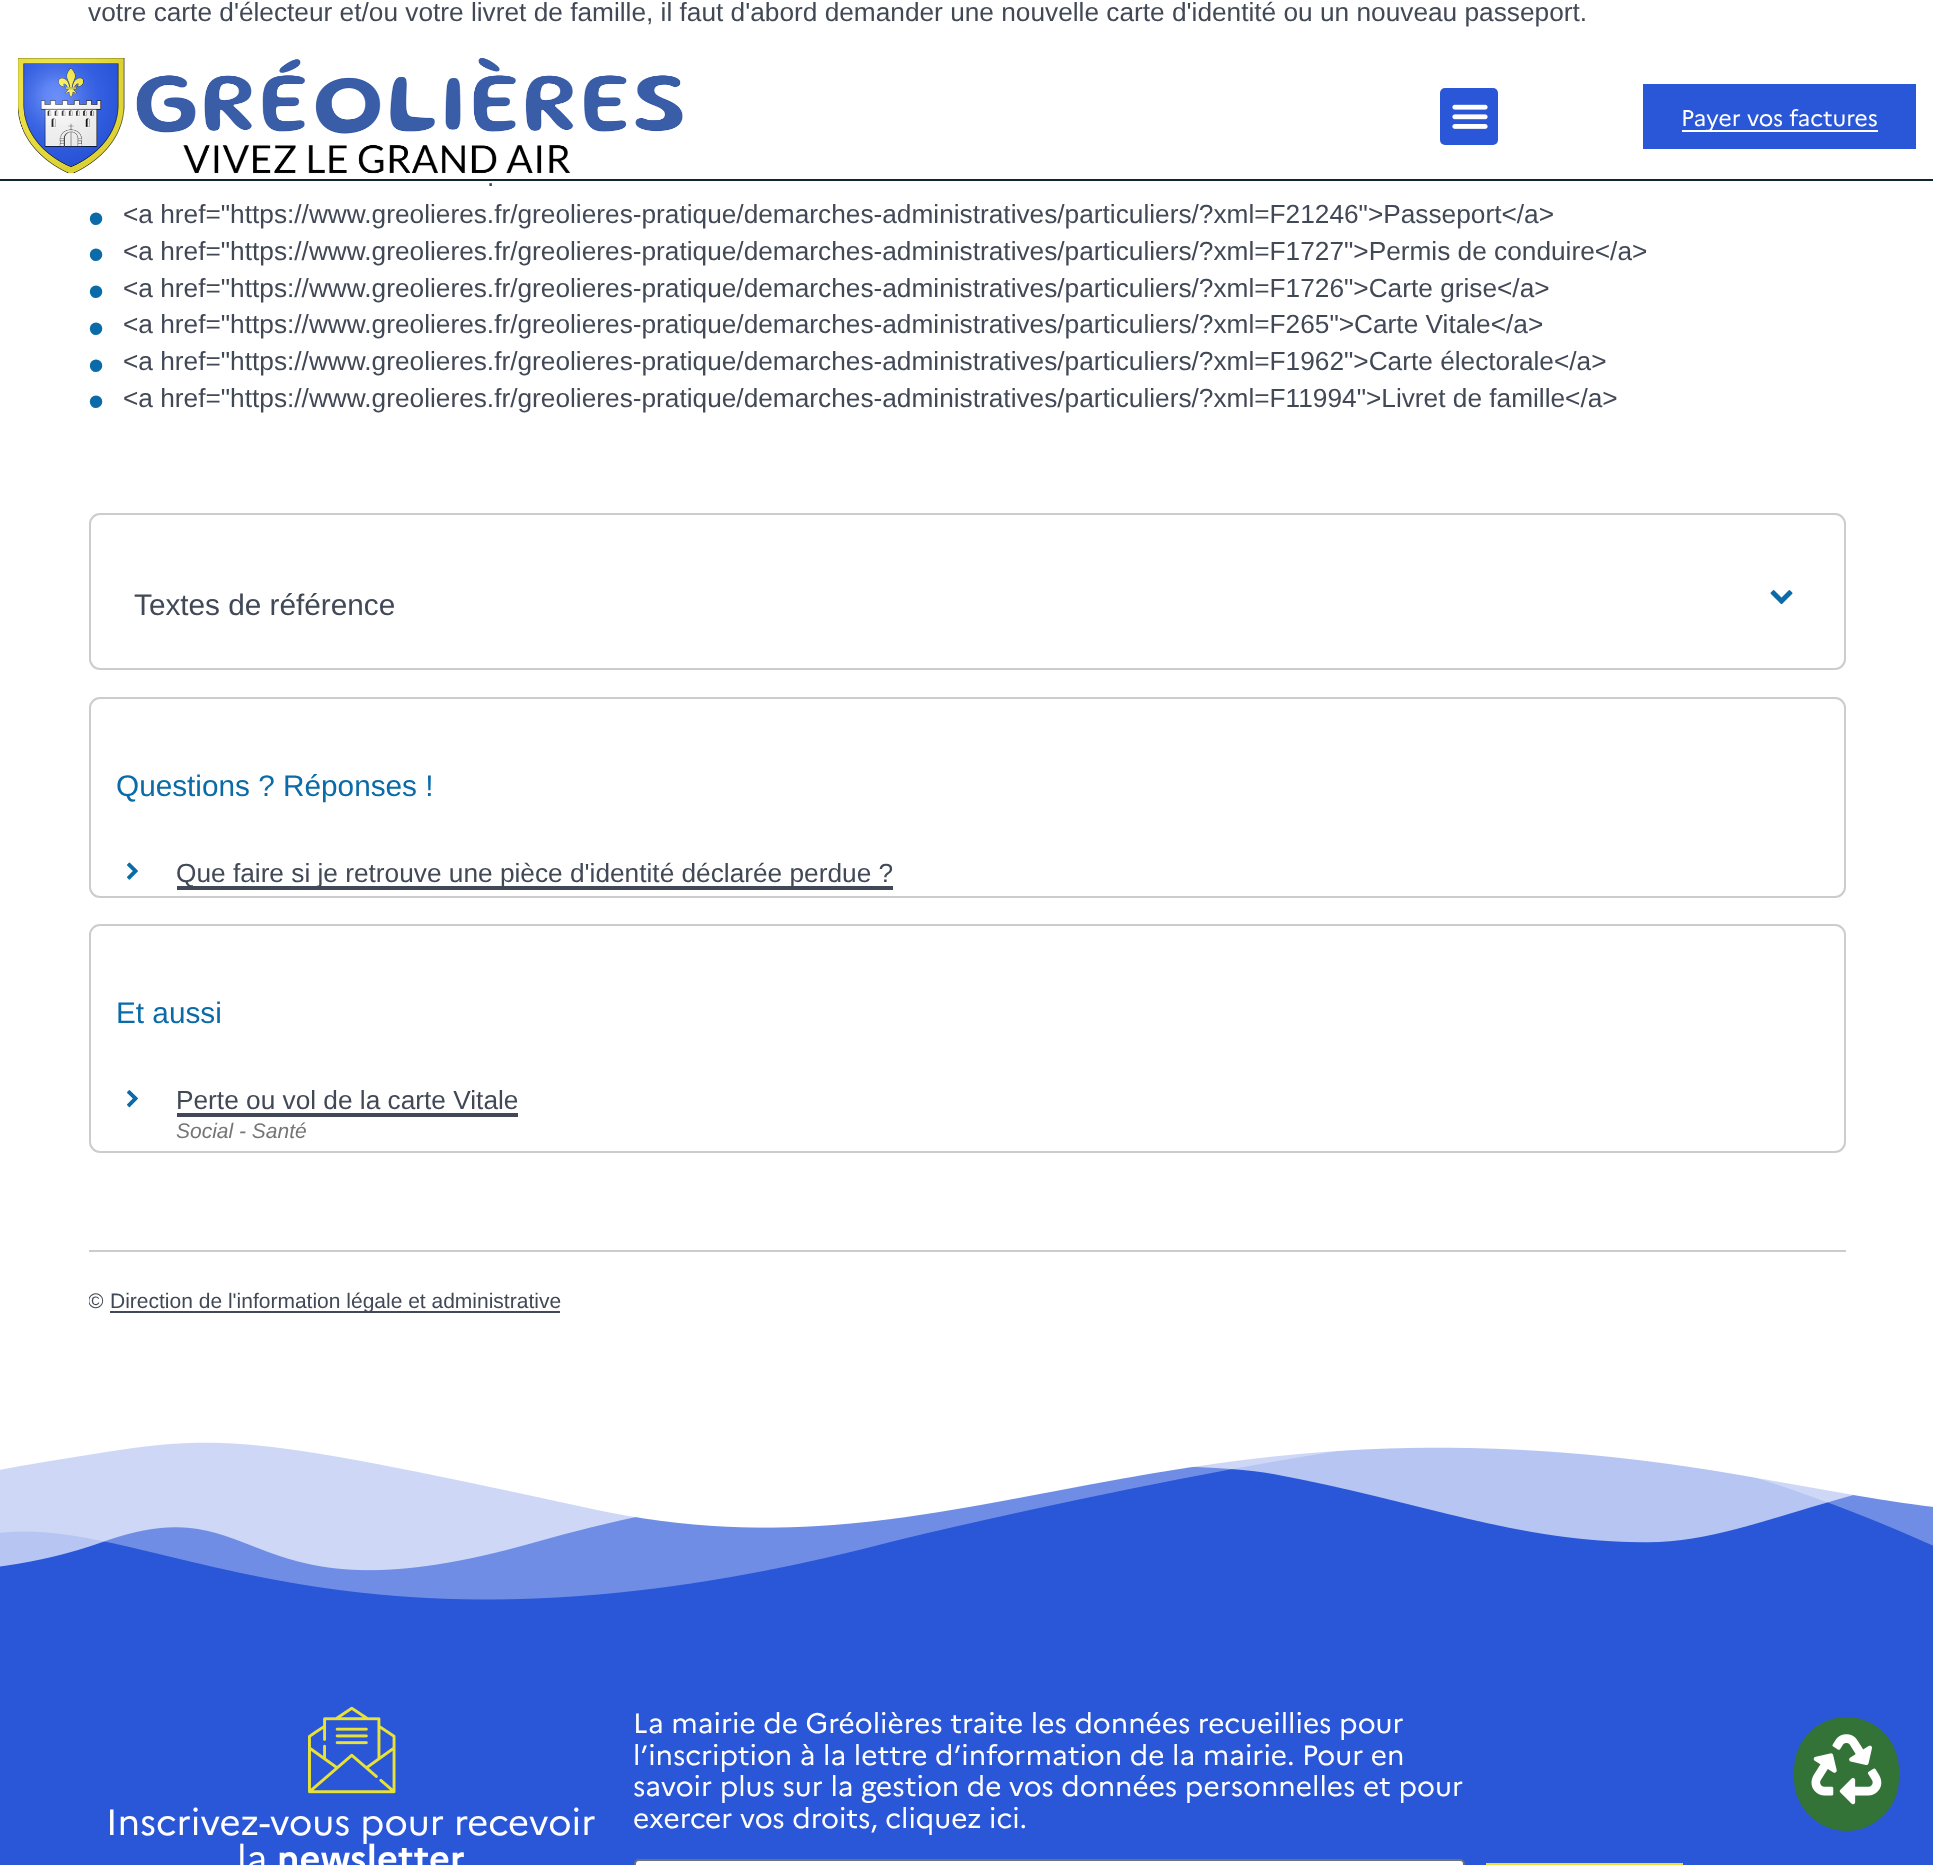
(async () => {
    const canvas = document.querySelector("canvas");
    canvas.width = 1933;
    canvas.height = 1865;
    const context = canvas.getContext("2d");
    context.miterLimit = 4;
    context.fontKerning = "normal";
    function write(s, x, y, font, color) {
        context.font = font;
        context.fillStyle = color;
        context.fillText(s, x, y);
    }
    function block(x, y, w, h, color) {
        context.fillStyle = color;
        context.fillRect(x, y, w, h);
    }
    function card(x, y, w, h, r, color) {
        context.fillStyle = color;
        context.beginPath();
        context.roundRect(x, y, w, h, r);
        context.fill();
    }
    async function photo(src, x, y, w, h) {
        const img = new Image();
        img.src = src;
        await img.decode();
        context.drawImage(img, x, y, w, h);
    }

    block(0, 0, 1933, 1865, "rgb(255, 255, 255)");
    write("votre carte d'électeur et/ou votre livret de famille, il faut d'abord demander une nouvelle carte d'identité ou un nouveau passeport.", 88, 21, "26.25px Liberation Sans", "rgb(65, 72, 86)");
    write(".", 487, 186, "26.25px Liberation Sans", "rgb(65, 72, 86)");
    write("•", 88, 234, "46px Liberation Sans", "rgb(11, 107, 168)");
    write("<a href=\"https://www.greolieres.fr/greolieres-pratique/demarches-administratives/particuliers/?xml=F21246\">Passeport<\/a>", 123, 223, "26.25px Liberation Sans", "rgb(65, 72, 86)");
    write("•", 88, 270, "46px Liberation Sans", "rgb(11, 107, 168)");
    write("<a href=\"https://www.greolieres.fr/greolieres-pratique/demarches-administratives/particuliers/?xml=F1727\">Permis de conduire<\/a>", 123, 260, "26.25px Liberation Sans", "rgb(65, 72, 86)");
    write("•", 88, 307, "46px Liberation Sans", "rgb(11, 107, 168)");
    write("<a href=\"https://www.greolieres.fr/greolieres-pratique/demarches-administratives/particuliers/?xml=F1726\">Carte grise<\/a>", 123, 297, "26.25px Liberation Sans", "rgb(65, 72, 86)");
    write("•", 88, 344, "46px Liberation Sans", "rgb(11, 107, 168)");
    write("<a href=\"https://www.greolieres.fr/greolieres-pratique/demarches-administratives/particuliers/?xml=F265\">Carte Vitale<\/a>", 123, 333, "26.25px Liberation Sans", "rgb(65, 72, 86)");
    write("•", 88, 381, "46px Liberation Sans", "rgb(11, 107, 168)");
    write("<a href=\"https://www.greolieres.fr/greolieres-pratique/demarches-administratives/particuliers/?xml=F1962\">Carte électorale<\/a>", 123, 370, "26.25px Liberation Sans", "rgb(65, 72, 86)");
    write("•", 88, 417, "46px Liberation Sans", "rgb(11, 107, 168)");
    write("<a href=\"https://www.greolieres.fr/greolieres-pratique/demarches-administratives/particuliers/?xml=F11994\">Livret de famille<\/a>", 123, 407, "26.25px Liberation Sans", "rgb(65, 72, 86)");
    context.beginPath();
    context.roundRect(90, 514, 1755, 155, 10);
    context.strokeStyle = "rgb(204, 204, 204)";
    context.lineWidth = 2;
    context.stroke();
    write("Textes de référence", 134, 615, "29.75px Liberation Sans", "rgb(65, 72, 86)");
    await photo("media/1.png", 1770, 590, 23, 15);
    context.beginPath();
    context.roundRect(90, 698, 1755, 199, 10);
    context.stroke();
    write("Questions ? Réponses !", 116, 796, "29.75px Liberation Sans", "rgb(11, 107, 168)");
    await photo("media/2.png", 127, 862, 11, 18);
    block(177, 886, 716, 4, "rgb(65, 72, 86)");
    write("Que faire si je retrouve une pièce d'identité déclarée perdue ?", 176, 882, "26.25px Liberation Sans", "rgb(65, 72, 86)");
    context.beginPath();
    context.roundRect(90, 925, 1755, 227, 10);
    context.stroke();
    write("Et aussi", 116, 1023, "29.75px Liberation Sans", "rgb(11, 107, 168)");
    await photo("media/3.png", 127, 1090, 11, 18);
    write("Perte ou vol de la carte Vitale", 176, 1109, "26.25px Liberation Sans", "rgb(65, 72, 86)");
    block(177, 1113, 341, 4, "rgb(65, 72, 86)");
    write("Social - Santé", 176, 1138, "italic 21px Liberation Sans", "rgb(117, 117, 117)");
    block(89, 1250, 1757, 2, "rgb(204, 204, 204)");
    context.save();
    context.beginPath();
    context.rect(89, 0, 1757, 1321);
    context.clip();
    write("©", 88, 1308, "21px Liberation Sans", "rgb(65, 72, 86)");
    context.restore();
    block(110, 1311, 450, 2, "rgb(65, 72, 86)");
    write("Direction de l'information légale et administrative", 110, 1308, "21px Liberation Sans", "rgb(65, 72, 86)");
    block(0, 179, 1933, 2, "rgb(14, 40, 49)");
    await photo("media/4.png", 18, 58, 665, 116);
    card(1440, 88, 58, 57, 5, "rgb(42, 86, 216)");
    await photo("media/5.png", 1452, 104, 36, 25);
    block(1643, 84, 273, 65, "rgb(42, 86, 216)");
    block(1682, 130, 196, 2, "rgb(255, 255, 255)");
    write("Payer vos factures", 1681, 126, "22.75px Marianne", "rgb(255, 255, 255)");
    block(0, 1442, 1933, 423, "rgb(42, 86, 216)");
    await photo("media/6.png", 0, 1426, 1933, 174);
    await photo("media/7.png", 308, 1706, 88, 88);
    write("Inscrivez-vous pour recevoir", 106, 1835, "36.4px Marianne", "rgb(255, 255, 255)");
    write("la", 237, 1871, "36.4px Marianne", "rgb(255, 255, 255)");
    write("newsletter", 277, 1871, "bold 36.4px Marianne", "rgb(255, 255, 255)");
    write("La mairie de Gréolières traite les données recueillies pour", 633, 1733, "28px Marianne", "rgb(255, 255, 255)");
    write("l’inscription à la lettre d’information de la mairie. Pour en", 633, 1765, "28px Marianne", "rgb(255, 255, 255)");
    write("savoir plus sur la gestion de vos données personnelles et pour", 633, 1796, "28px Marianne", "rgb(255, 255, 255)");
    write("exercer vos droits, cliquez ici.", 633, 1828, "28px Marianne", "rgb(255, 255, 255)");
    context.beginPath();
    context.roundRect(635, 1860, 829, 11, 4);
    context.fill();
    context.strokeStyle = "rgb(105, 114, 125)";
    context.stroke();
    context.fillStyle = "rgb(233, 226, 54)";
    context.beginPath();
    context.rect(1484, 1861, 201, 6);
    context.fill();
    context.strokeStyle = "rgb(42, 86, 216)";
    context.lineWidth = 4;
    context.stroke();
    card(1794, 1717, 105, 114, 52.5, "rgb(51, 115, 55)");
    await photo("media/8.png", 1811, 1734, 71, 71);
})();
